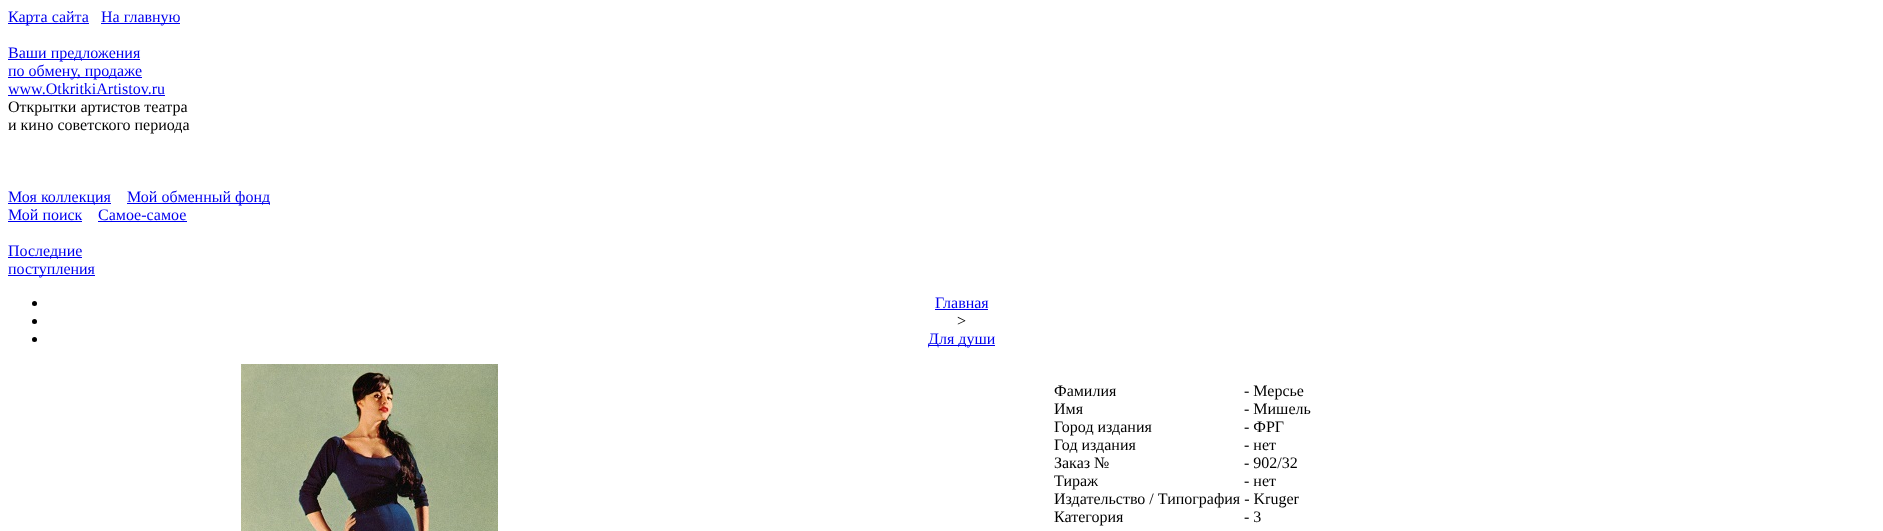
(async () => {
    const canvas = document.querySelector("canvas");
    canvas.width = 1883;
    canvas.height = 531;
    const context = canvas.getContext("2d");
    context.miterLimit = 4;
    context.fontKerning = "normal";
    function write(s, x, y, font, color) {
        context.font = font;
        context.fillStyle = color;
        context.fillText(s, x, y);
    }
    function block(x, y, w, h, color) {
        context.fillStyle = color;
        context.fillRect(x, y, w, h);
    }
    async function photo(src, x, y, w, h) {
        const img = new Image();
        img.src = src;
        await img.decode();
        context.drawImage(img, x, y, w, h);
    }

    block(0, 0, 1883, 531, "rgb(255, 255, 255)");
    block(8, 23, 81, 1, "rgb(0, 0, 238)");
    write("Карта сайта", 8, 22, "16px Liberation Serif", "rgb(0, 0, 238)");
    block(101, 23, 79, 1, "rgb(0, 0, 238)");
    write("На главную", 101, 22, "16px Liberation Serif", "rgb(0, 0, 238)");
    block(8, 59, 132, 1, "rgb(0, 0, 238)");
    write("Ваши предложения", 8, 58, "16px Liberation Serif", "rgb(0, 0, 238)");
    block(8, 77, 134, 1, "rgb(0, 0, 238)");
    write("по обмену, продаже", 8, 76, "16px Liberation Serif", "rgb(0, 0, 238)");
    write("www.OtkritkiArtistov.ru", 8, 94, "16px Liberation Serif", "rgb(0, 0, 238)");
    block(8, 95, 157, 1, "rgb(0, 0, 238)");
    write("Открытки артистов театра", 8, 112, "16px Liberation Serif", "rgb(0, 0, 0)");
    write("и кино советского периода", 8, 130, "16px Liberation Serif", "rgb(0, 0, 0)");
    block(8, 203, 103, 1, "rgb(0, 0, 238)");
    write("Моя коллекция", 8, 202, "16px Liberation Serif", "rgb(0, 0, 238)");
    block(127, 203, 143, 1, "rgb(0, 0, 238)");
    write("Мой обменный фонд", 127, 202, "16px Liberation Serif", "rgb(0, 0, 238)");
    write("Мой поиск", 8, 220, "16px Liberation Serif", "rgb(0, 0, 238)");
    block(8, 221, 74, 1, "rgb(0, 0, 238)");
    write("Самое-самое", 98, 220, "16px Liberation Serif", "rgb(0, 0, 238)");
    block(98, 221, 89, 1, "rgb(0, 0, 238)");
    block(8, 257, 74, 1, "rgb(0, 0, 238)");
    write("Последние", 8, 256, "16px Liberation Serif", "rgb(0, 0, 238)");
    block(8, 275, 87, 1, "rgb(0, 0, 238)");
    write("поступления", 8, 274, "16px Liberation Serif", "rgb(0, 0, 238)");
    context.fillStyle = "rgb(0, 0, 0)";
    context.beginPath();
    context.arc(34.5, 303.5, 2.5, 0, Math.PI * 2);
    context.fill();
    write("Главная", 935, 308, "16px Liberation Serif", "rgb(0, 0, 238)");
    block(935, 309, 53, 1, "rgb(0, 0, 238)");
    context.fillStyle = "rgb(0, 0, 0)";
    context.beginPath();
    context.arc(34.5, 321.5, 2.5, 0, Math.PI * 2);
    context.fill();
    write(">", 957, 326, "16px Liberation Serif", "rgb(0, 0, 0)");
    context.beginPath();
    context.arc(34.5, 339.5, 2.5, 0, Math.PI * 2);
    context.fill();
    block(928, 345, 67, 1, "rgb(0, 0, 238)");
    write("Для души", 928, 344, "16px Liberation Serif", "rgb(0, 0, 238)");
    await photo("media/1.png", 241, 364, 257, 167);
    write("Фамилия", 1054, 396, "16px Liberation Serif", "rgb(0, 0, 0)");
    write("- Мерсье", 1244, 396, "16px Liberation Serif", "rgb(0, 0, 0)");
    write("Имя", 1054, 414, "16px Liberation Serif", "rgb(0, 0, 0)");
    write("- Мишель", 1244, 414, "16px Liberation Serif", "rgb(0, 0, 0)");
    write("Город издания", 1054, 432, "16px Liberation Serif", "rgb(0, 0, 0)");
    write("- ФРГ", 1244, 432, "16px Liberation Serif", "rgb(0, 0, 0)");
    write("Год издания", 1054, 450, "16px Liberation Serif", "rgb(0, 0, 0)");
    write("- нет", 1244, 450, "16px Liberation Serif", "rgb(0, 0, 0)");
    write("Заказ №", 1054, 468, "16px Liberation Serif", "rgb(0, 0, 0)");
    write("- 902/32", 1244, 468, "16px Liberation Serif", "rgb(0, 0, 0)");
    write("Тираж", 1054, 486, "16px Liberation Serif", "rgb(0, 0, 0)");
    write("- нет", 1244, 486, "16px Liberation Serif", "rgb(0, 0, 0)");
    write("Издательство / Типография - Kruger", 1054, 504, "16px Liberation Serif", "rgb(0, 0, 0)");
    write("Категория", 1054, 522, "16px Liberation Serif", "rgb(0, 0, 0)");
    write("- 3", 1244, 522, "16px Liberation Serif", "rgb(0, 0, 0)");
})();
